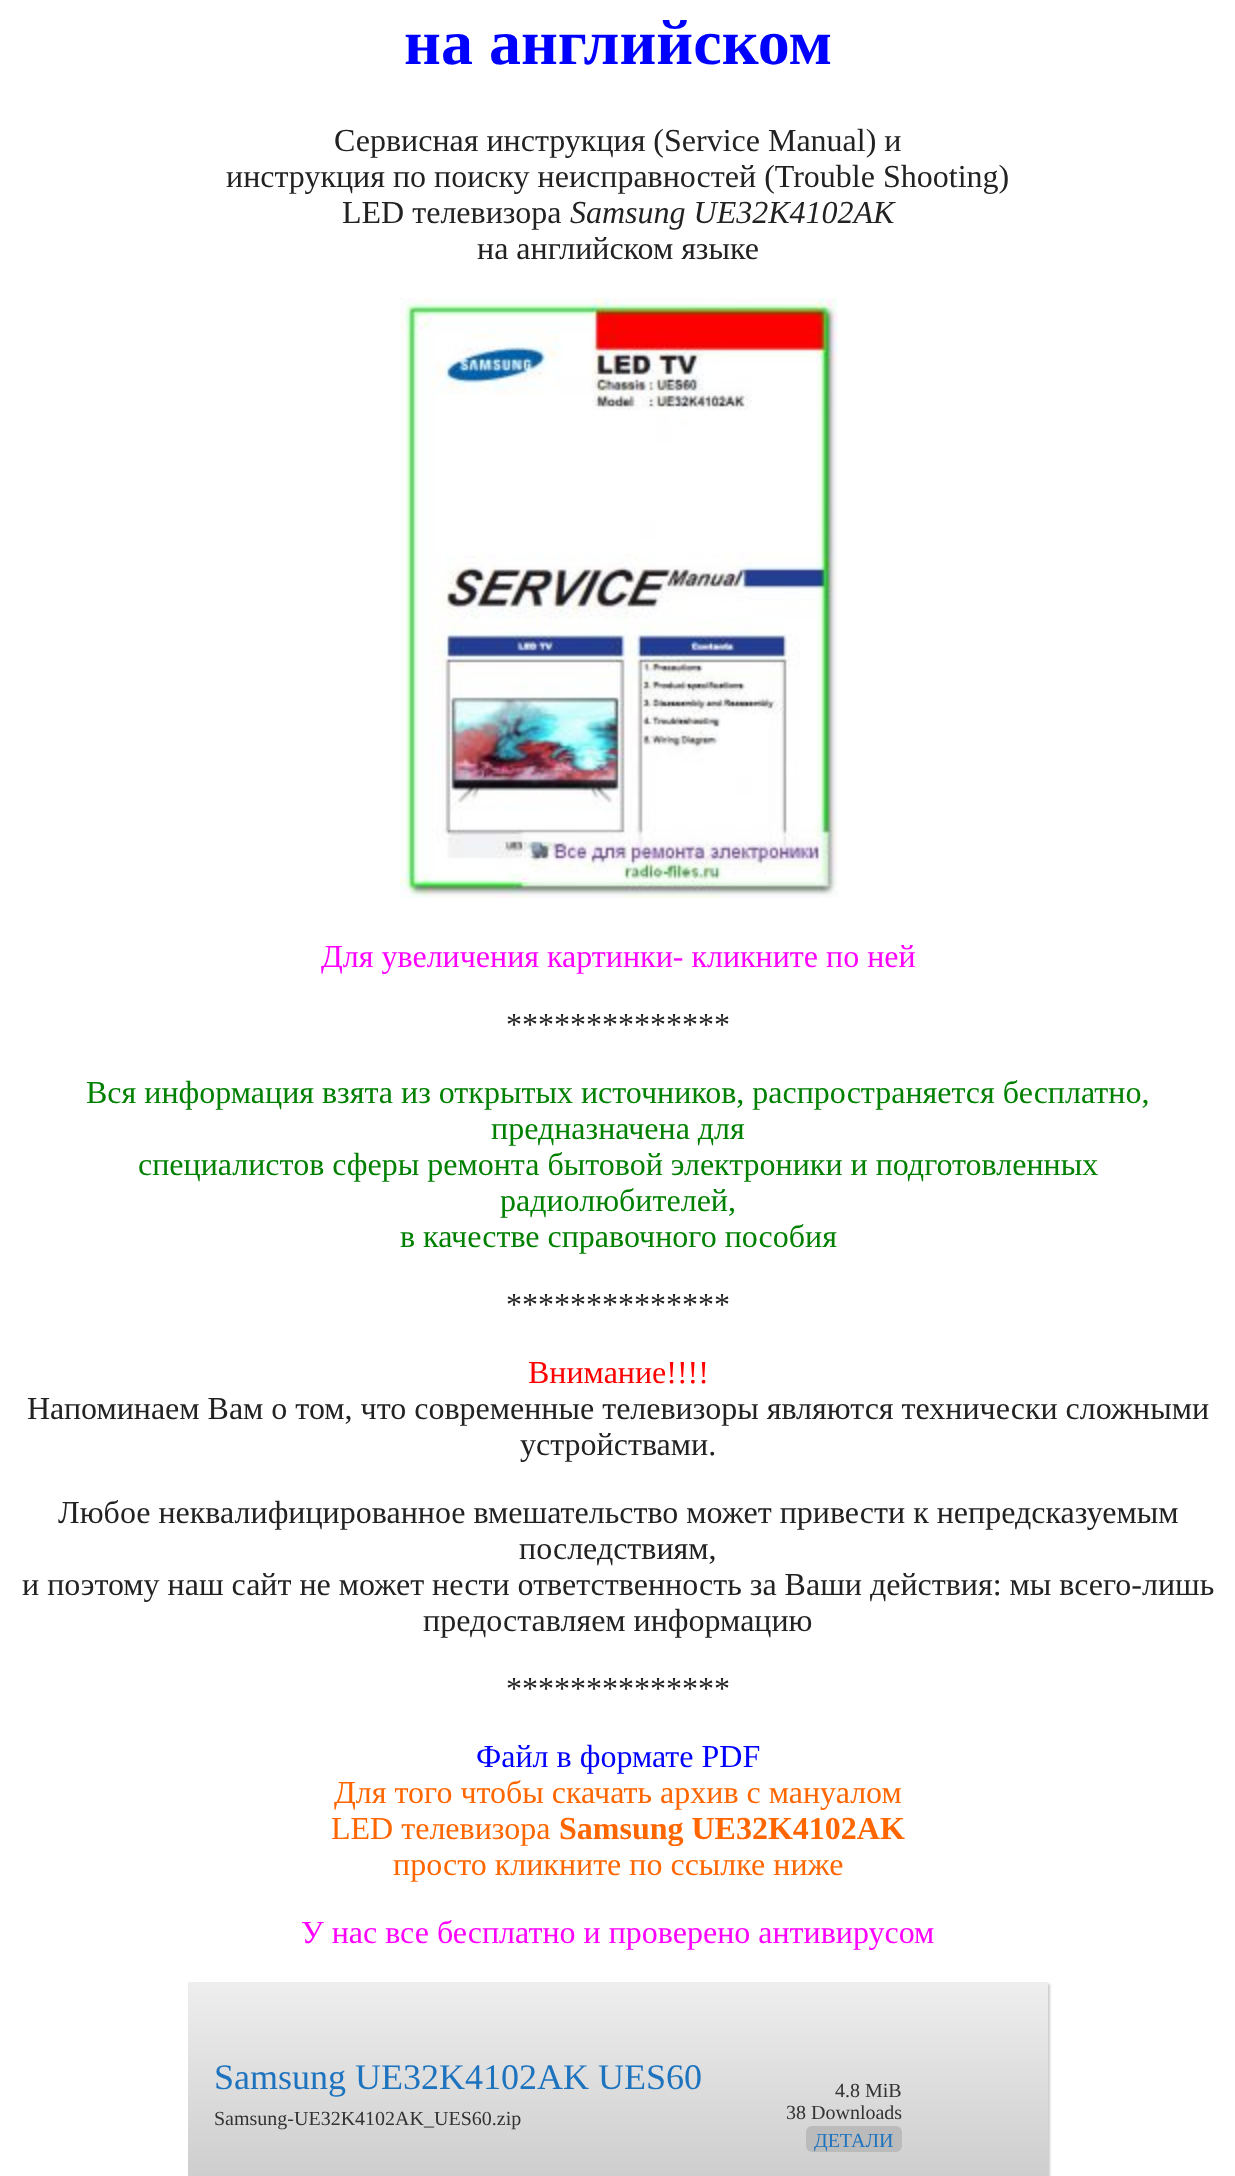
(async () => {
    const canvas = document.querySelector("canvas");
    canvas.width = 1235;
    canvas.height = 2176;
    const context = canvas.getContext("2d");
    context.miterLimit = 4;
    context.fontKerning = "normal";
    function write(s, x, y, font, color) {
        context.font = font;
        context.fillStyle = color;
        context.fillText(s, x, y);
    }
    function block(x, y, w, h, color) {
        context.fillStyle = color;
        context.fillRect(x, y, w, h);
    }
    function card(x, y, w, h, r, color) {
        context.fillStyle = color;
        context.beginPath();
        context.roundRect(x, y, w, h, r);
        context.fill();
    }
    async function photo(src, x, y, w, h) {
        const img = new Image();
        img.src = src;
        await img.decode();
        context.drawImage(img, x, y, w, h);
    }
    let gradient;

    block(0, 0, 1235, 2176, "rgb(255, 255, 255)");
    write("на английском", 404, 64, "bold 64px Liberation Serif", "rgb(0, 0, 255)");
    write("Сервисная инструкция (Service Manual) и", 334, 151, "32px Liberation Serif", "rgb(34, 34, 34)");
    write("инструкция по поиску неисправностей (Trouble Shooting)", 226, 187, "32px Liberation Serif", "rgb(34, 34, 34)");
    write("LED телевизора", 342, 223, "32px Liberation Serif", "rgb(34, 34, 34)");
    write("Samsung UE32K4102AK", 570, 223, "italic 32px Liberation Serif", "rgb(34, 34, 34)");
    write("на английском языке", 477, 259, "32px Liberation Serif", "rgb(34, 34, 34)");
    await photo("media/1.png", 400, 298, 438, 600);
    write("Для увеличения картинки- кликните по ней", 321, 967, "32px Liberation Serif", "rgb(255, 0, 255)");
    write("**************", 506, 1035, "32px Liberation Serif", "rgb(34, 34, 34)");
    write("Вся информация взята из открытых источников, распространяется бесплатно,", 86, 1103, "32px Liberation Serif", "rgb(0, 128, 0)");
    write("предназначена для", 491, 1139, "32px Liberation Serif", "rgb(0, 128, 0)");
    write("специалистов сферы ремонта бытовой электроники и подготовленных", 138, 1175, "32px Liberation Serif", "rgb(0, 128, 0)");
    write("радиолюбителей,", 500, 1211, "32px Liberation Serif", "rgb(0, 128, 0)");
    write("в качестве справочного пособия", 400, 1247, "32px Liberation Serif", "rgb(0, 128, 0)");
    write("**************", 506, 1315, "32px Liberation Serif", "rgb(34, 34, 34)");
    write("Внимание!!!!", 528, 1383, "32px Liberation Serif", "rgb(255, 0, 0)");
    write("Напоминаем Вам о том, что современные телевизоры являются технически сложными", 27, 1419, "32px Liberation Serif", "rgb(34, 34, 34)");
    write("устройствами.", 520, 1455, "32px Liberation Serif", "rgb(34, 34, 34)");
    write("Любое неквалифицированное вмешательство может привести к непредсказуемым", 58, 1523, "32px Liberation Serif", "rgb(34, 34, 34)");
    write("последствиям,", 519, 1559, "32px Liberation Serif", "rgb(34, 34, 34)");
    write("и поэтому наш сайт не может нести ответственность за Ваши действия: мы всего-лишь", 22, 1595, "32px Liberation Serif", "rgb(34, 34, 34)");
    write("предоставляем информацию", 423, 1631, "32px Liberation Serif", "rgb(34, 34, 34)");
    write("**************", 506, 1699, "32px Liberation Serif", "rgb(34, 34, 34)");
    write("Файл в формате PDF", 476, 1767, "32px Liberation Serif", "rgb(0, 0, 255)");
    write("Для того чтобы скачать архив с мануалом", 334, 1803, "32px Liberation Serif", "rgb(255, 102, 0)");
    write("LED телевизора", 331, 1839, "32px Liberation Serif", "rgb(255, 102, 0)");
    write("Samsung UE32K4102AK", 559, 1839, "bold 32px Liberation Serif", "rgb(255, 102, 0)");
    write("просто кликните по ссылке ниже", 393, 1875, "32px Liberation Serif", "rgb(255, 102, 0)");
    write("У нас все бесплатно и проверено антивирусом", 301, 1943, "32px Liberation Serif", "rgb(255, 0, 255)");
    context.fillStyle = "rgb(204, 204, 204)";
    context.filter = "blur(1px)";
    context.beginPath();
    context.rect(190, 1984, 860, 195);
    context.fill();
    context.filter = "none";
    gradient = context.createLinearGradient(618, 1982, 618, 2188);
    gradient.addColorStop(0, "rgb(238, 238, 238)");
    gradient.addColorStop(1, "rgb(204, 204, 204)");
    context.fillStyle = gradient;
    context.fillRect(188, 1982, 860, 194);
    write("Samsung UE32K4102AK UES60", 214, 2089, "36px Liberation Serif", "rgb(30, 115, 190)");
    write("Samsung-UE32K4102AK_UES60.zip", 214, 2125, "20px Liberation Serif", "rgb(51, 51, 51)");
    write("4.8 MiB", 835, 2097, "20px Liberation Serif", "rgb(51, 51, 51)");
    write("38 Downloads", 786, 2119, "20px Liberation Serif", "rgb(51, 51, 51)");
    card(806, 2126, 96, 26, 6, "rgb(187, 187, 187)");
    write("ДЕТАЛИ", 814, 2147, "20px Liberation Serif", "rgb(30, 115, 190)");
})();
